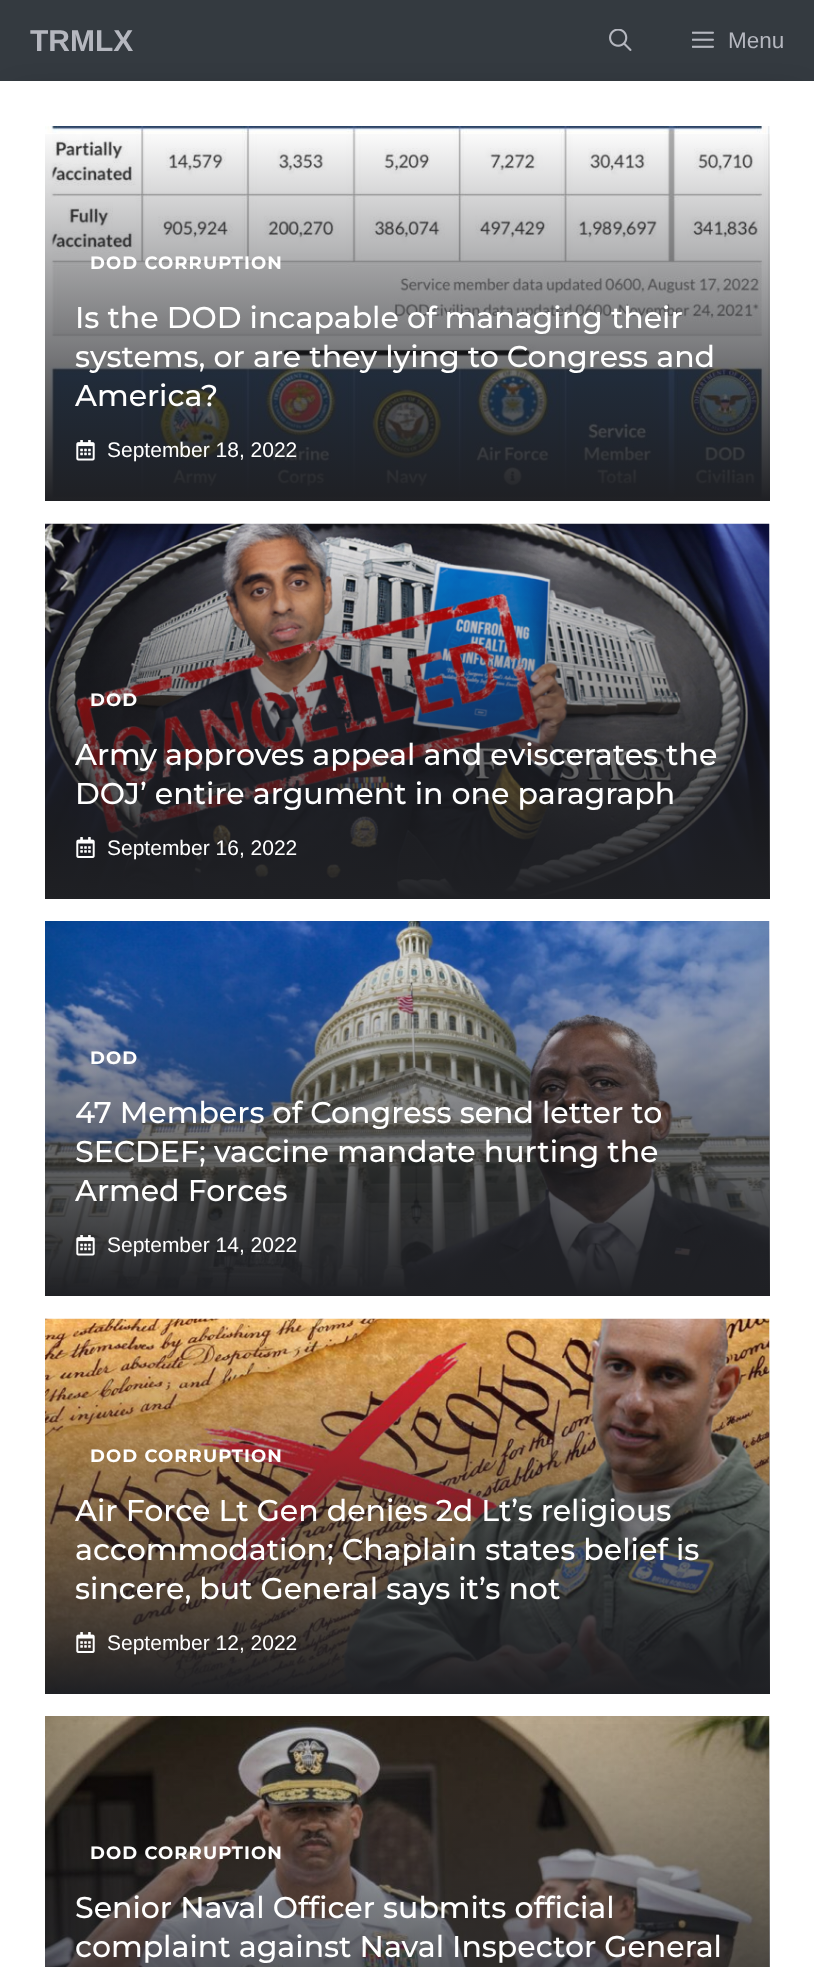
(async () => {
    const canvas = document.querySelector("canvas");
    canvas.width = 814;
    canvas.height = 1967;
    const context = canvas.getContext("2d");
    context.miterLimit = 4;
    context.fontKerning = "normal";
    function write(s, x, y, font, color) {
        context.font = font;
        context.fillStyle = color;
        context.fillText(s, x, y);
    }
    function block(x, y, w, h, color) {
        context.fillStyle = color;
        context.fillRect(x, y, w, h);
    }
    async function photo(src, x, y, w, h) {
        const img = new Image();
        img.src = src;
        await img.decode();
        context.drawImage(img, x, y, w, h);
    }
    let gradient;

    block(0, 0, 814, 1967, "rgb(52, 58, 64)");
    context.fillStyle = "rgba(0, 0, 0, 0.3)";
    context.filter = "blur(15px)";
    context.beginPath();
    context.rect(15, 96, 785, 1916);
    context.fill();
    context.filter = "none";
    write("TRMLX", 30, 51, "bold 30px Liberation Sans", "rgb(181, 183, 191)");
    await photo("media/1.png", 609, 29, 23, 22);
    await photo("media/2.png", 692, 31, 22, 17);
    write("Menu", 728, 48, "22.5px Liberation Sans", "rgb(181, 183, 191)");
    block(0, 81, 814, 1886, "rgb(255, 255, 255)");
    await photo("media/3.png", 45, 126, 725, 373);
    gradient = context.createLinearGradient(407, 126, 407, 501);
    gradient.addColorStop(0, "rgba(31, 32, 36, 0)");
    gradient.addColorStop(1, "rgb(31, 32, 36)");
    context.fillStyle = gradient;
    context.fillRect(45, 134, 725, 367);
    context.letterSpacing = "1.1px";
    write("DOD CORRUPTION", 90, 269, "bold 18px Montserrat", "rgb(255, 255, 255)");
    context.letterSpacing = "0px";
    write("Is the DOD incapable of managing their", 75, 328, "500 30px Montserrat", "rgb(255, 255, 255)");
    write("systems, or are they lying to Congress and", 75, 367, "500 30px Montserrat", "rgb(255, 255, 255)");
    write("America?", 75, 406, "500 30px Montserrat", "rgb(255, 255, 255)");
    await photo("media/4.png", 76, 440, 19, 21);
    write("September 18, 2022", 107, 457, "21px Liberation Sans", "rgb(255, 255, 255)");
    await photo("media/5.png", 45, 523, 725, 374);
    gradient = context.createLinearGradient(407, 524, 407, 899);
    gradient.addColorStop(0, "rgba(31, 32, 36, 0)");
    gradient.addColorStop(1, "rgb(31, 32, 36)");
    context.fillStyle = gradient;
    context.fillRect(45, 532, 725, 367);
    context.letterSpacing = "1.1px";
    write("DOD", 90, 706, "bold 18px Montserrat", "rgb(255, 255, 255)");
    context.letterSpacing = "0px";
    write("Army approves appeal and eviscerates the", 75, 765, "500 30px Montserrat", "rgb(255, 255, 255)");
    write("DOJ’ entire argument in one paragraph", 75, 804, "500 30px Montserrat", "rgb(255, 255, 255)");
    await photo("media/6.png", 76, 837, 19, 21);
    write("September 16, 2022", 107, 855, "21px Liberation Sans", "rgb(255, 255, 255)");
    await photo("media/7.png", 45, 921, 725, 373);
    gradient = context.createLinearGradient(407, 921, 407, 1296);
    gradient.addColorStop(0, "rgba(31, 32, 36, 0)");
    gradient.addColorStop(1, "rgb(31, 32, 36)");
    context.fillStyle = gradient;
    context.fillRect(45, 929, 725, 367);
    context.letterSpacing = "1.1px";
    write("DOD", 90, 1064, "bold 18px Montserrat", "rgb(255, 255, 255)");
    context.letterSpacing = "0px";
    write("47 Members of Congress send letter to", 75, 1123, "500 30px Montserrat", "rgb(255, 255, 255)");
    write("SECDEF; vaccine mandate hurting the", 75, 1162, "500 30px Montserrat", "rgb(255, 255, 255)");
    write("Armed Forces", 75, 1201, "500 30px Montserrat", "rgb(255, 255, 255)");
    await photo("media/8.png", 76, 1235, 19, 21);
    write("September 14, 2022", 107, 1252, "21px Liberation Sans", "rgb(255, 255, 255)");
    await photo("media/9.png", 45, 1318, 725, 374);
    gradient = context.createLinearGradient(407, 1319, 407, 1694);
    gradient.addColorStop(0, "rgba(31, 32, 36, 0)");
    gradient.addColorStop(1, "rgb(31, 32, 36)");
    context.fillStyle = gradient;
    context.fillRect(45, 1327, 725, 367);
    context.letterSpacing = "1.1px";
    write("DOD CORRUPTION", 90, 1462, "bold 18px Montserrat", "rgb(255, 255, 255)");
    context.letterSpacing = "0px";
    write("Air Force Lt Gen denies 2d Lt’s religious", 75, 1521, "500 30px Montserrat", "rgb(255, 255, 255)");
    write("accommodation; Chaplain states belief is", 75, 1560, "500 30px Montserrat", "rgb(255, 255, 255)");
    write("sincere, but General says it’s not", 75, 1599, "500 30px Montserrat", "rgb(255, 255, 255)");
    await photo("media/10.png", 76, 1632, 19, 21);
    write("September 12, 2022", 107, 1650, "21px Liberation Sans", "rgb(255, 255, 255)");
    await photo("media/11.png", 45, 1716, 725, 251);
    gradient = context.createLinearGradient(407, 1716, 407, 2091);
    gradient.addColorStop(0, "rgba(31, 32, 36, 0)");
    gradient.addColorStop(1, "rgb(31, 32, 36)");
    context.fillStyle = gradient;
    context.fillRect(45, 1724, 725, 243);
    context.letterSpacing = "1.1px";
    write("DOD CORRUPTION", 90, 1859, "bold 18px Montserrat", "rgb(255, 255, 255)");
    context.letterSpacing = "0px";
    write("Senior Naval Officer submits official", 75, 1918, "500 30px Montserrat", "rgb(255, 255, 255)");
    write("complaint against Naval Inspector General", 75, 1957, "500 30px Montserrat", "rgb(255, 255, 255)");
})();
